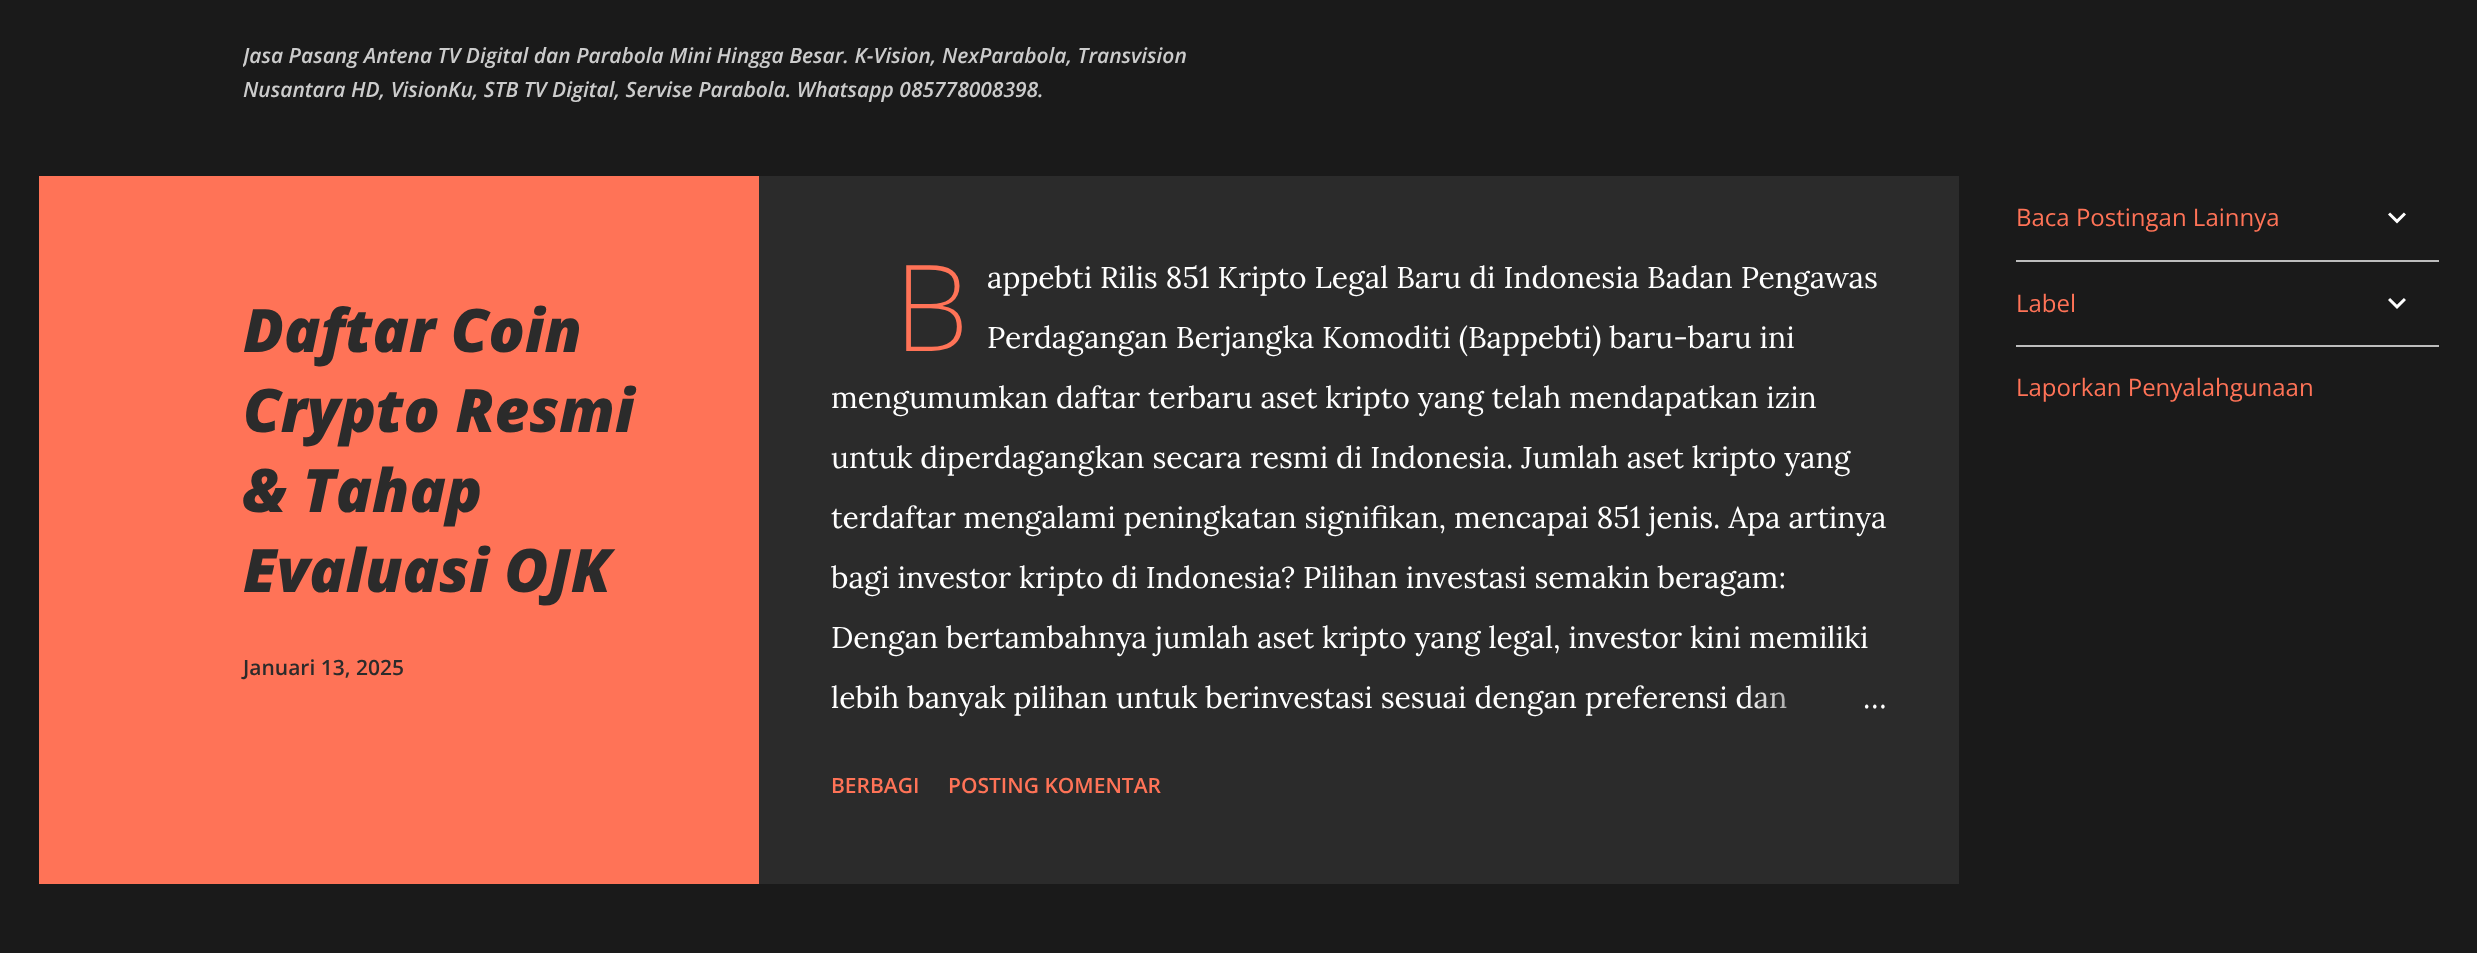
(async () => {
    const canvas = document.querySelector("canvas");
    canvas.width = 2477;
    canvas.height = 953;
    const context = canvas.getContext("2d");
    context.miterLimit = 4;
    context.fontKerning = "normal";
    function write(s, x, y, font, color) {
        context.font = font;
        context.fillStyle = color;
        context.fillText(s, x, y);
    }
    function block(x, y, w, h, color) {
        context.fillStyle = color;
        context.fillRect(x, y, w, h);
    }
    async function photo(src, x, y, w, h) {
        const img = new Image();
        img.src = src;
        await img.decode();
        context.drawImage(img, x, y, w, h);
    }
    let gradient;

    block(0, 0, 2477, 953, "rgb(26, 26, 26)");
    context.save();
    context.beginPath();
    context.rect(243, 0, 1512, 128);
    context.clip();
    write("Jasa Pasang Antena TV Digital dan Parabola Mini Hingga Besar. K-Vision, NexParabola, Transvision", 243, 63, "italic 600 21px Open Sans", "rgb(204, 204, 204)");
    context.restore();
    write("Nusantara HD, VisionKu, STB TV Digital, Servise Parabola. Whatsapp 085778008398.", 243, 97, "italic 600 21px Open Sans", "rgb(204, 204, 204)");
    block(39, 176, 720, 708, "rgb(255, 115, 87)");
    write("Daftar Coin", 243, 352, "italic 800 60px Open Sans", "rgb(43, 43, 43)");
    write("Crypto Resmi", 243, 432, "italic 800 60px Open Sans", "rgb(43, 43, 43)");
    write("& Tahap", 243, 512, "italic 800 60px Open Sans", "rgb(43, 43, 43)");
    write("Evaluasi OJK", 243, 592, "italic 800 60px Open Sans", "rgb(43, 43, 43)");
    write("Januari 13, 2025", 243, 675, "600 21px Open Sans", "rgb(43, 43, 43)");
    block(759, 176, 1200, 708, "rgb(43, 43, 43)");
    write("B", 894, 351, "200 120px Noto Sans", "rgb(255, 115, 87)");
    write("appebti Rilis 851 Kripto Legal Baru di Indonesia Badan Pengawas", 987, 288, "30px Lora", "rgb(255, 255, 255)");
    write("Perdagangan Berjangka Komoditi (Bappebti) baru-baru ini", 987, 348, "30px Lora", "rgb(255, 255, 255)");
    write("mengumumkan daftar terbaru aset kripto yang telah mendapatkan izin", 831, 408, "30px Lora", "rgb(255, 255, 255)");
    write("untuk diperdagangkan secara resmi di Indonesia. Jumlah aset kripto yang", 831, 468, "30px Lora", "rgb(255, 255, 255)");
    write("terdaftar mengalami peningkatan signifikan, mencapai 851 jenis. Apa artinya", 831, 528, "30px Lora", "rgb(255, 255, 255)");
    write("bagi investor kripto di Indonesia? Pilihan investasi semakin beragam:", 831, 588, "30px Lora", "rgb(255, 255, 255)");
    write("Dengan bertambahnya jumlah aset kripto yang legal, investor kini memiliki", 831, 648, "30px Lora", "rgb(255, 255, 255)");
    write("lebih banyak pilihan untuk berinvestasi sesuai dengan preferensi dan", 831, 708, "30px Lora", "rgb(255, 255, 255)");
    gradient = context.createLinearGradient(1887, 698, 1743, 698);
    gradient.addColorStop(0, "rgb(43, 43, 43)");
    gradient.addColorStop(0.2, "rgb(43, 43, 43)");
    gradient.addColorStop(1, "rgba(43, 43, 43, 0)");
    context.fillStyle = gradient;
    context.fillRect(1745, 685, 42, 24);
    write("…", 1863, 708, "30px Lora", "rgb(255, 255, 255)");
    write("BERBAGI", 831, 793, "600 21px Open Sans", "rgb(255, 115, 87)");
    write("POSTING KOMENTAR", 948, 793, "600 21px Open Sans", "rgb(255, 115, 87)");
    write("Baca Postingan Lainnya", 2016, 226, "24px Open Sans", "rgb(255, 115, 87)");
    await photo("media/1.png", 2388, 212, 18, 12);
    block(2016, 260, 423, 2, "rgb(189, 189, 189)");
    write("Label", 2016, 312, "24px Open Sans", "rgb(255, 115, 87)");
    await photo("media/2.png", 2388, 298, 18, 11);
    block(2016, 345, 423, 2, "rgb(189, 189, 189)");
    write("Laporkan Penyalahgunaan", 2016, 396, "24px Open Sans", "rgb(255, 115, 87)");
})();
